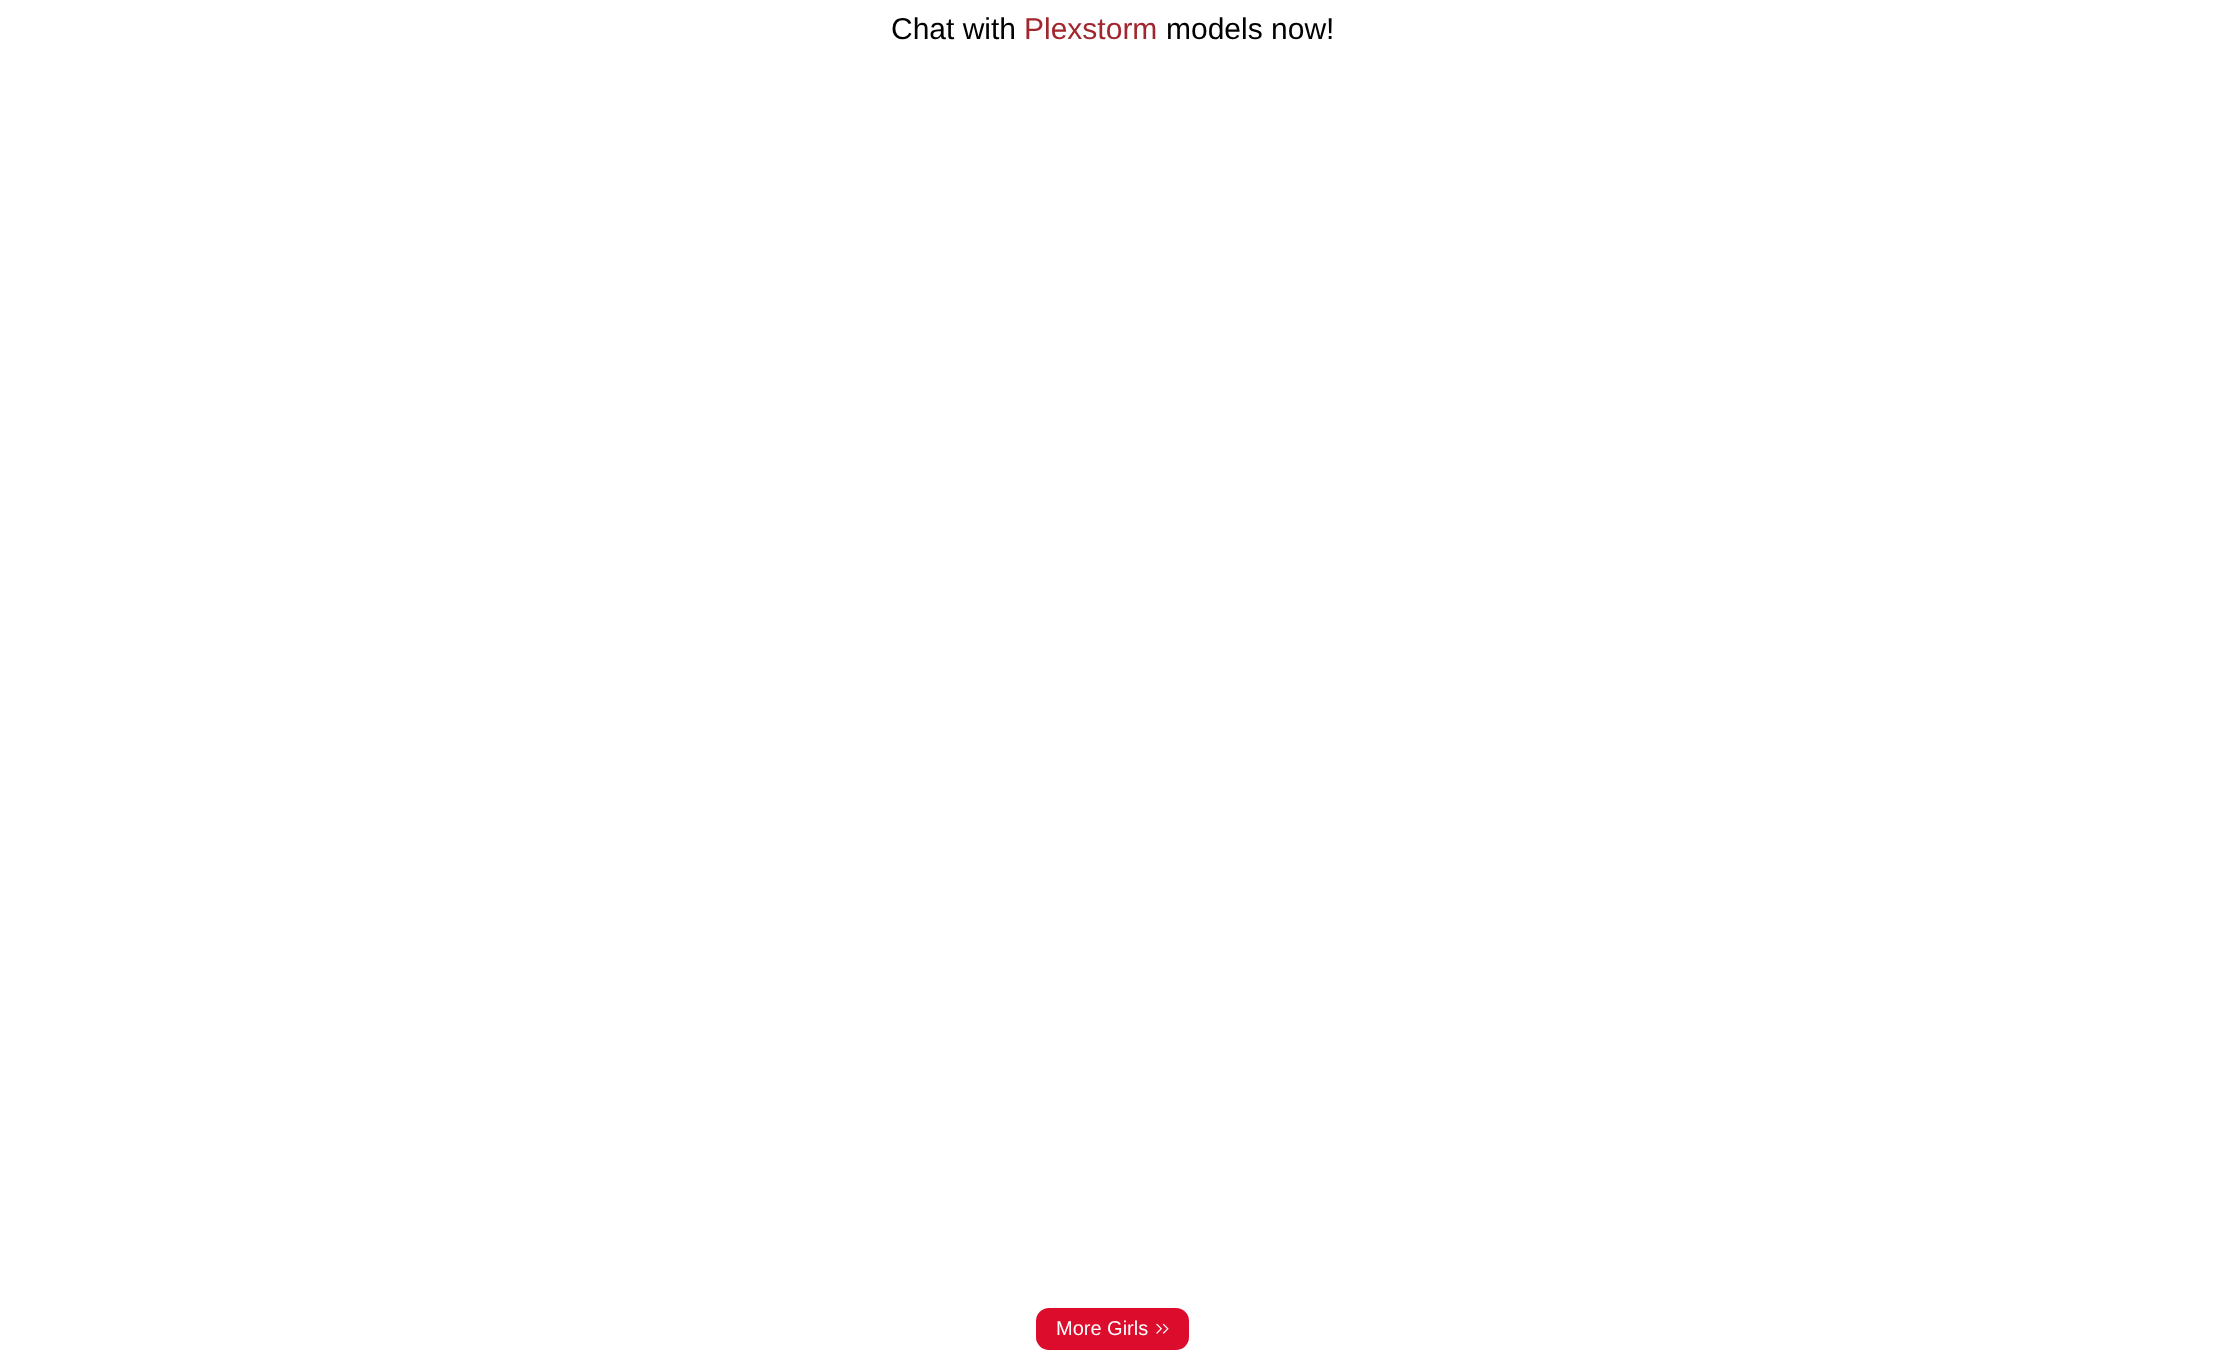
(async () => {
    const canvas = document.querySelector("canvas");
    canvas.width = 2224;
    canvas.height = 1354;
    const context = canvas.getContext("2d");
    context.miterLimit = 4;
    context.fontKerning = "normal";
    function write(s, x, y, font, color) {
        context.font = font;
        context.fillStyle = color;
        context.fillText(s, x, y);
    }
    function block(x, y, w, h, color) {
        context.fillStyle = color;
        context.fillRect(x, y, w, h);
    }
    function card(x, y, w, h, r, color) {
        context.fillStyle = color;
        context.beginPath();
        context.roundRect(x, y, w, h, r);
        context.fill();
    }
    async function photo(src, x, y, w, h) {
        const img = new Image();
        img.src = src;
        await img.decode();
        context.drawImage(img, x, y, w, h);
    }

    block(0, 0, 2224, 1354, "rgb(255, 255, 255)");
    write("Chat with", 891, 39, "30px Liberation Sans", "rgb(0, 0, 0)");
    write("Plexstorm", 1024, 39, "30px Liberation Sans", "rgb(162, 38, 46)");
    write("models now!", 1166, 39, "30px Liberation Sans", "rgb(0, 0, 0)");
    card(1036, 1308, 153, 42, 13, "rgb(220, 12, 44)");
    write("More Girls", 1056, 1335, "20px Liberation Sans", "rgb(255, 255, 255)");
    await photo("media/1.png", 1156, 1323, 13, 11);
})();
